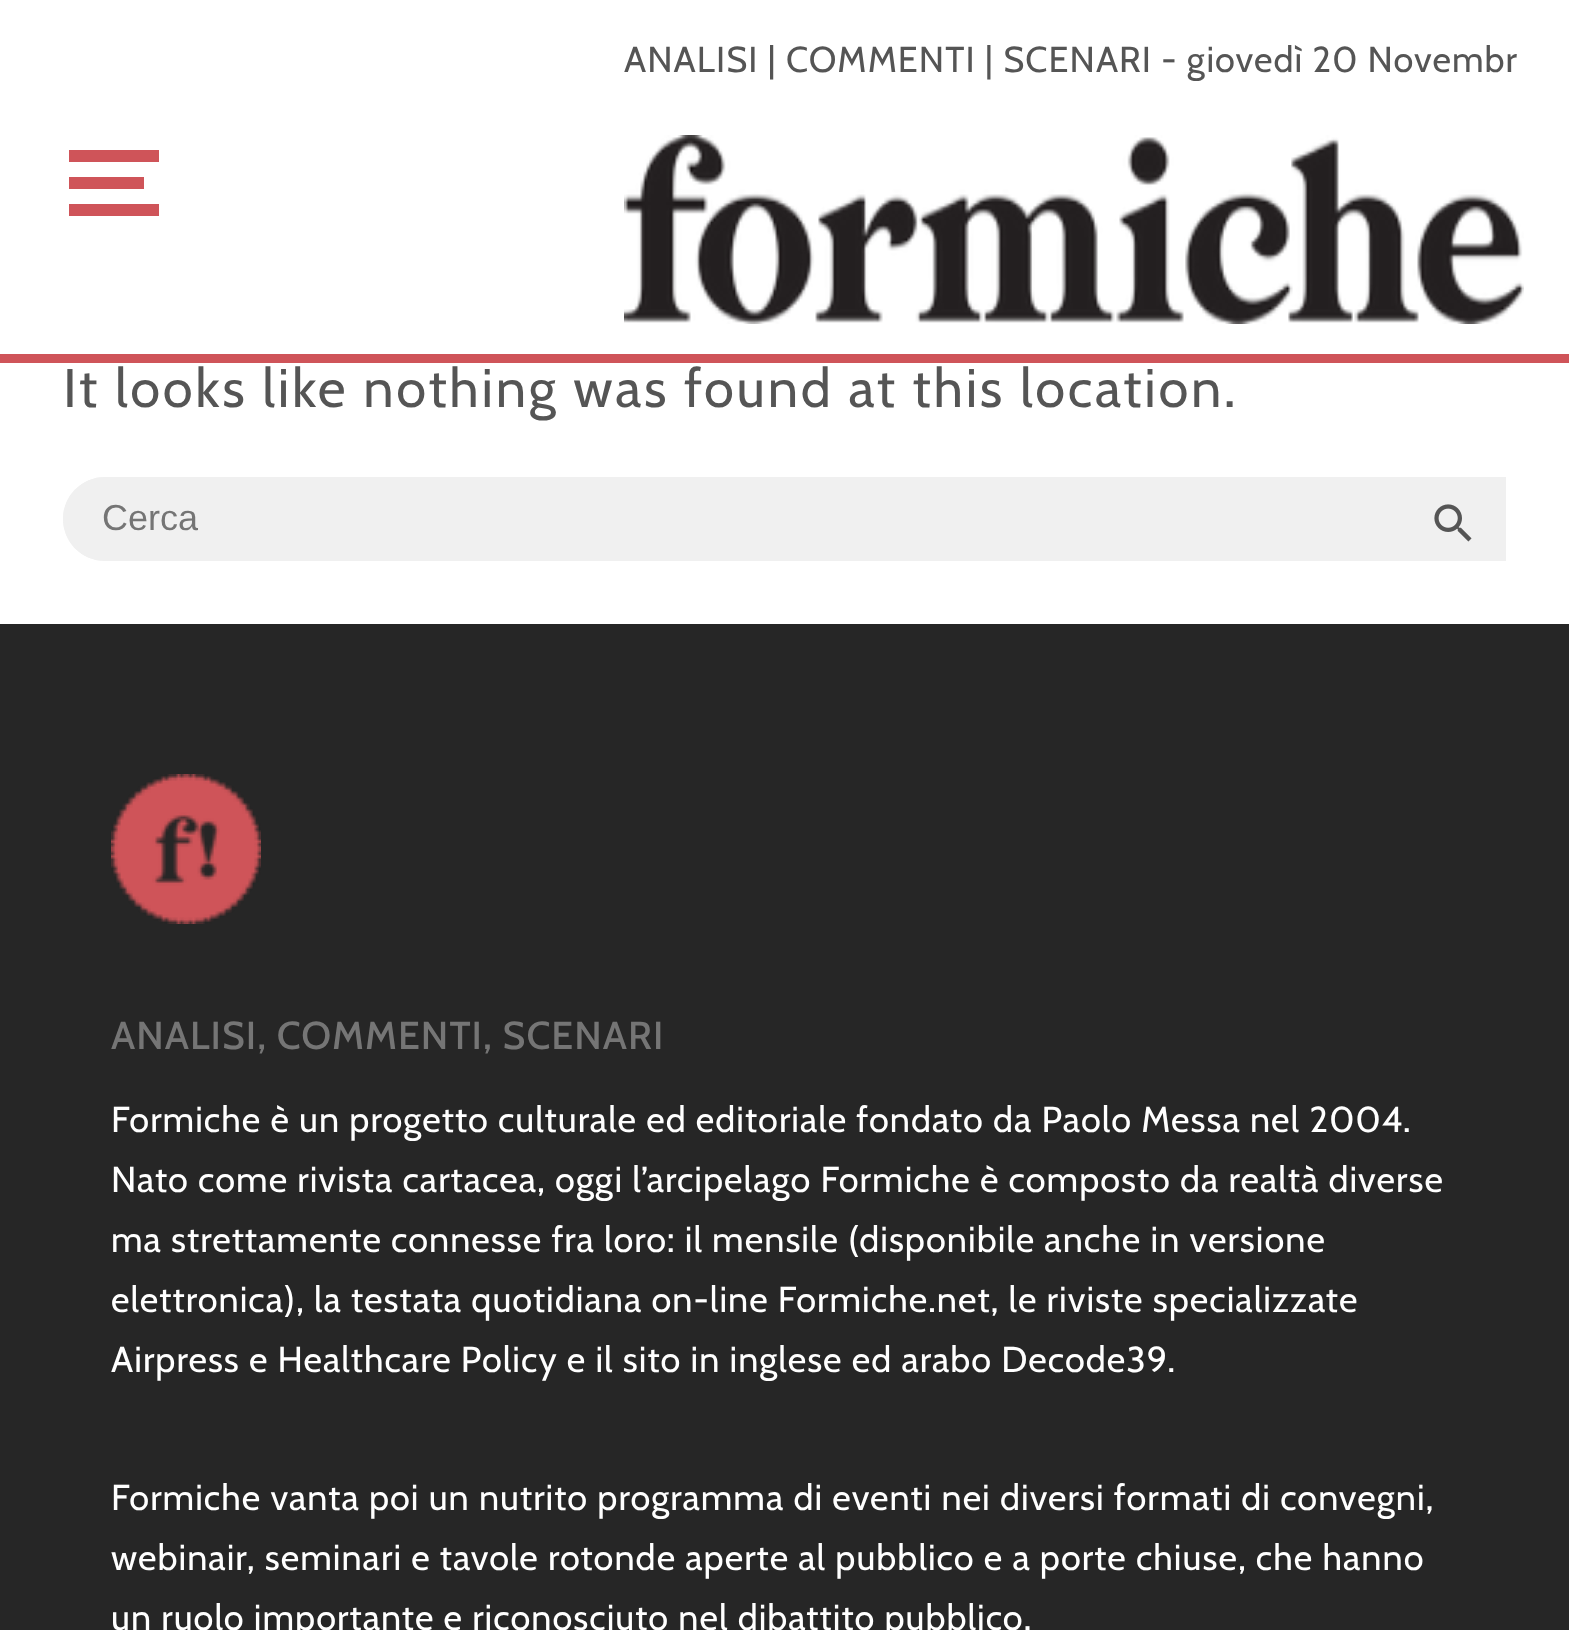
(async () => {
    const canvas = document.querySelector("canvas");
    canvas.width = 1569;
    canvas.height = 1630;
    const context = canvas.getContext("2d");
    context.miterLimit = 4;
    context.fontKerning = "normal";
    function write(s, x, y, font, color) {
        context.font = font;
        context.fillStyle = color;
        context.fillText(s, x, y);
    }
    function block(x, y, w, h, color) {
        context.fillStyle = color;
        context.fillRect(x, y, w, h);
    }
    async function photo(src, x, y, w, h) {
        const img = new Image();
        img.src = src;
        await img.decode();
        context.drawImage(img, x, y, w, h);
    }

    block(0, 0, 1569, 1630, "rgb(255, 255, 255)");
    block(0, 354, 1569, 9, "rgb(207, 84, 89)");
    context.letterSpacing = "1.05px";
    write("ANALISI | COMMENTI | SCENARI - giovedì 20 Novembr", 624, 72, "36px Cabin", "rgb(85, 85, 85)");
    await photo("media/1.png", 624, 135, 900, 189);
    block(69, 150, 90, 12, "rgb(207, 84, 89)");
    block(69, 177, 75, 12, "rgb(207, 84, 89)");
    block(69, 204, 90, 12, "rgb(207, 84, 89)");
    context.letterSpacing = "2.7px";
    write("It looks like nothing was found at this location.", 63, 407, "54.25px Cabin", "rgb(85, 85, 85)");
    context.fillStyle = "rgb(240, 240, 240)";
    context.beginPath();
    context.roundRect(63, 477, 1335, 84, [42, 0, 0, 42]);
    context.fill();
    context.beginPath();
    context.moveTo(105, 477);
    context.lineTo(1398, 477);
    context.lineTo(1398, 561);
    context.lineTo(105, 561);
    context.bezierCurveTo(82, 561, 63, 542, 63, 519);
    context.bezierCurveTo(63, 496, 82, 477, 105, 477);
    context.closePath();
    context.moveTo(105, 480);
    context.lineTo(1398, 480);
    context.lineTo(1398, 558);
    context.lineTo(105, 558);
    context.bezierCurveTo(83, 558, 66, 541, 66, 519);
    context.bezierCurveTo(66, 497, 83, 480, 105, 480);
    context.closePath();
    context.fill("evenodd");
    context.letterSpacing = "0px";
    write("Cerca", 102, 530, "36px Liberation Sans", "rgb(117, 117, 117)");
    block(1398, 477, 108, 84, "rgb(240, 240, 240)");
    await photo("media/2.png", 1434, 504, 38, 38);
    block(0, 624, 1569, 1006, "rgb(38, 38, 38)");
    await photo("media/3.png", 111, 774, 150, 150);
    context.letterSpacing = "1.05px";
    write("ANALISI, COMMENTI, SCENARI", 111, 1049, "500 39px Cabin", "rgb(117, 117, 117)");
    write("Formiche è un progetto culturale ed editoriale fondato da Paolo Messa nel 2004.", 111, 1132, "36px Cabin", "rgb(255, 255, 255)");
    write("Nato come rivista cartacea, oggi l’arcipelago Formiche è composto da realtà diverse", 111, 1192, "36px Cabin", "rgb(255, 255, 255)");
    write("ma strettamente connesse fra loro: il mensile (disponibile anche in versione", 111, 1252, "36px Cabin", "rgb(255, 255, 255)");
    write("elettronica), la testata quotidiana on-line Formiche.net, le riviste specializzate", 111, 1312, "36px Cabin", "rgb(255, 255, 255)");
    write("Airpress e Healthcare Policy e il sito in inglese ed arabo Decode39.", 111, 1372, "36px Cabin", "rgb(255, 255, 255)");
    write("Formiche vanta poi un nutrito programma di eventi nei diversi formati di convegni,", 111, 1510, "36px Cabin", "rgb(255, 255, 255)");
    write("webinair, seminari e tavole rotonde aperte al pubblico e a porte chiuse, che hanno", 111, 1570, "36px Cabin", "rgb(255, 255, 255)");
    write("un ruolo importante e riconosciuto nel dibattito pubblico.", 111, 1630, "36px Cabin", "rgb(255, 255, 255)");
})();
